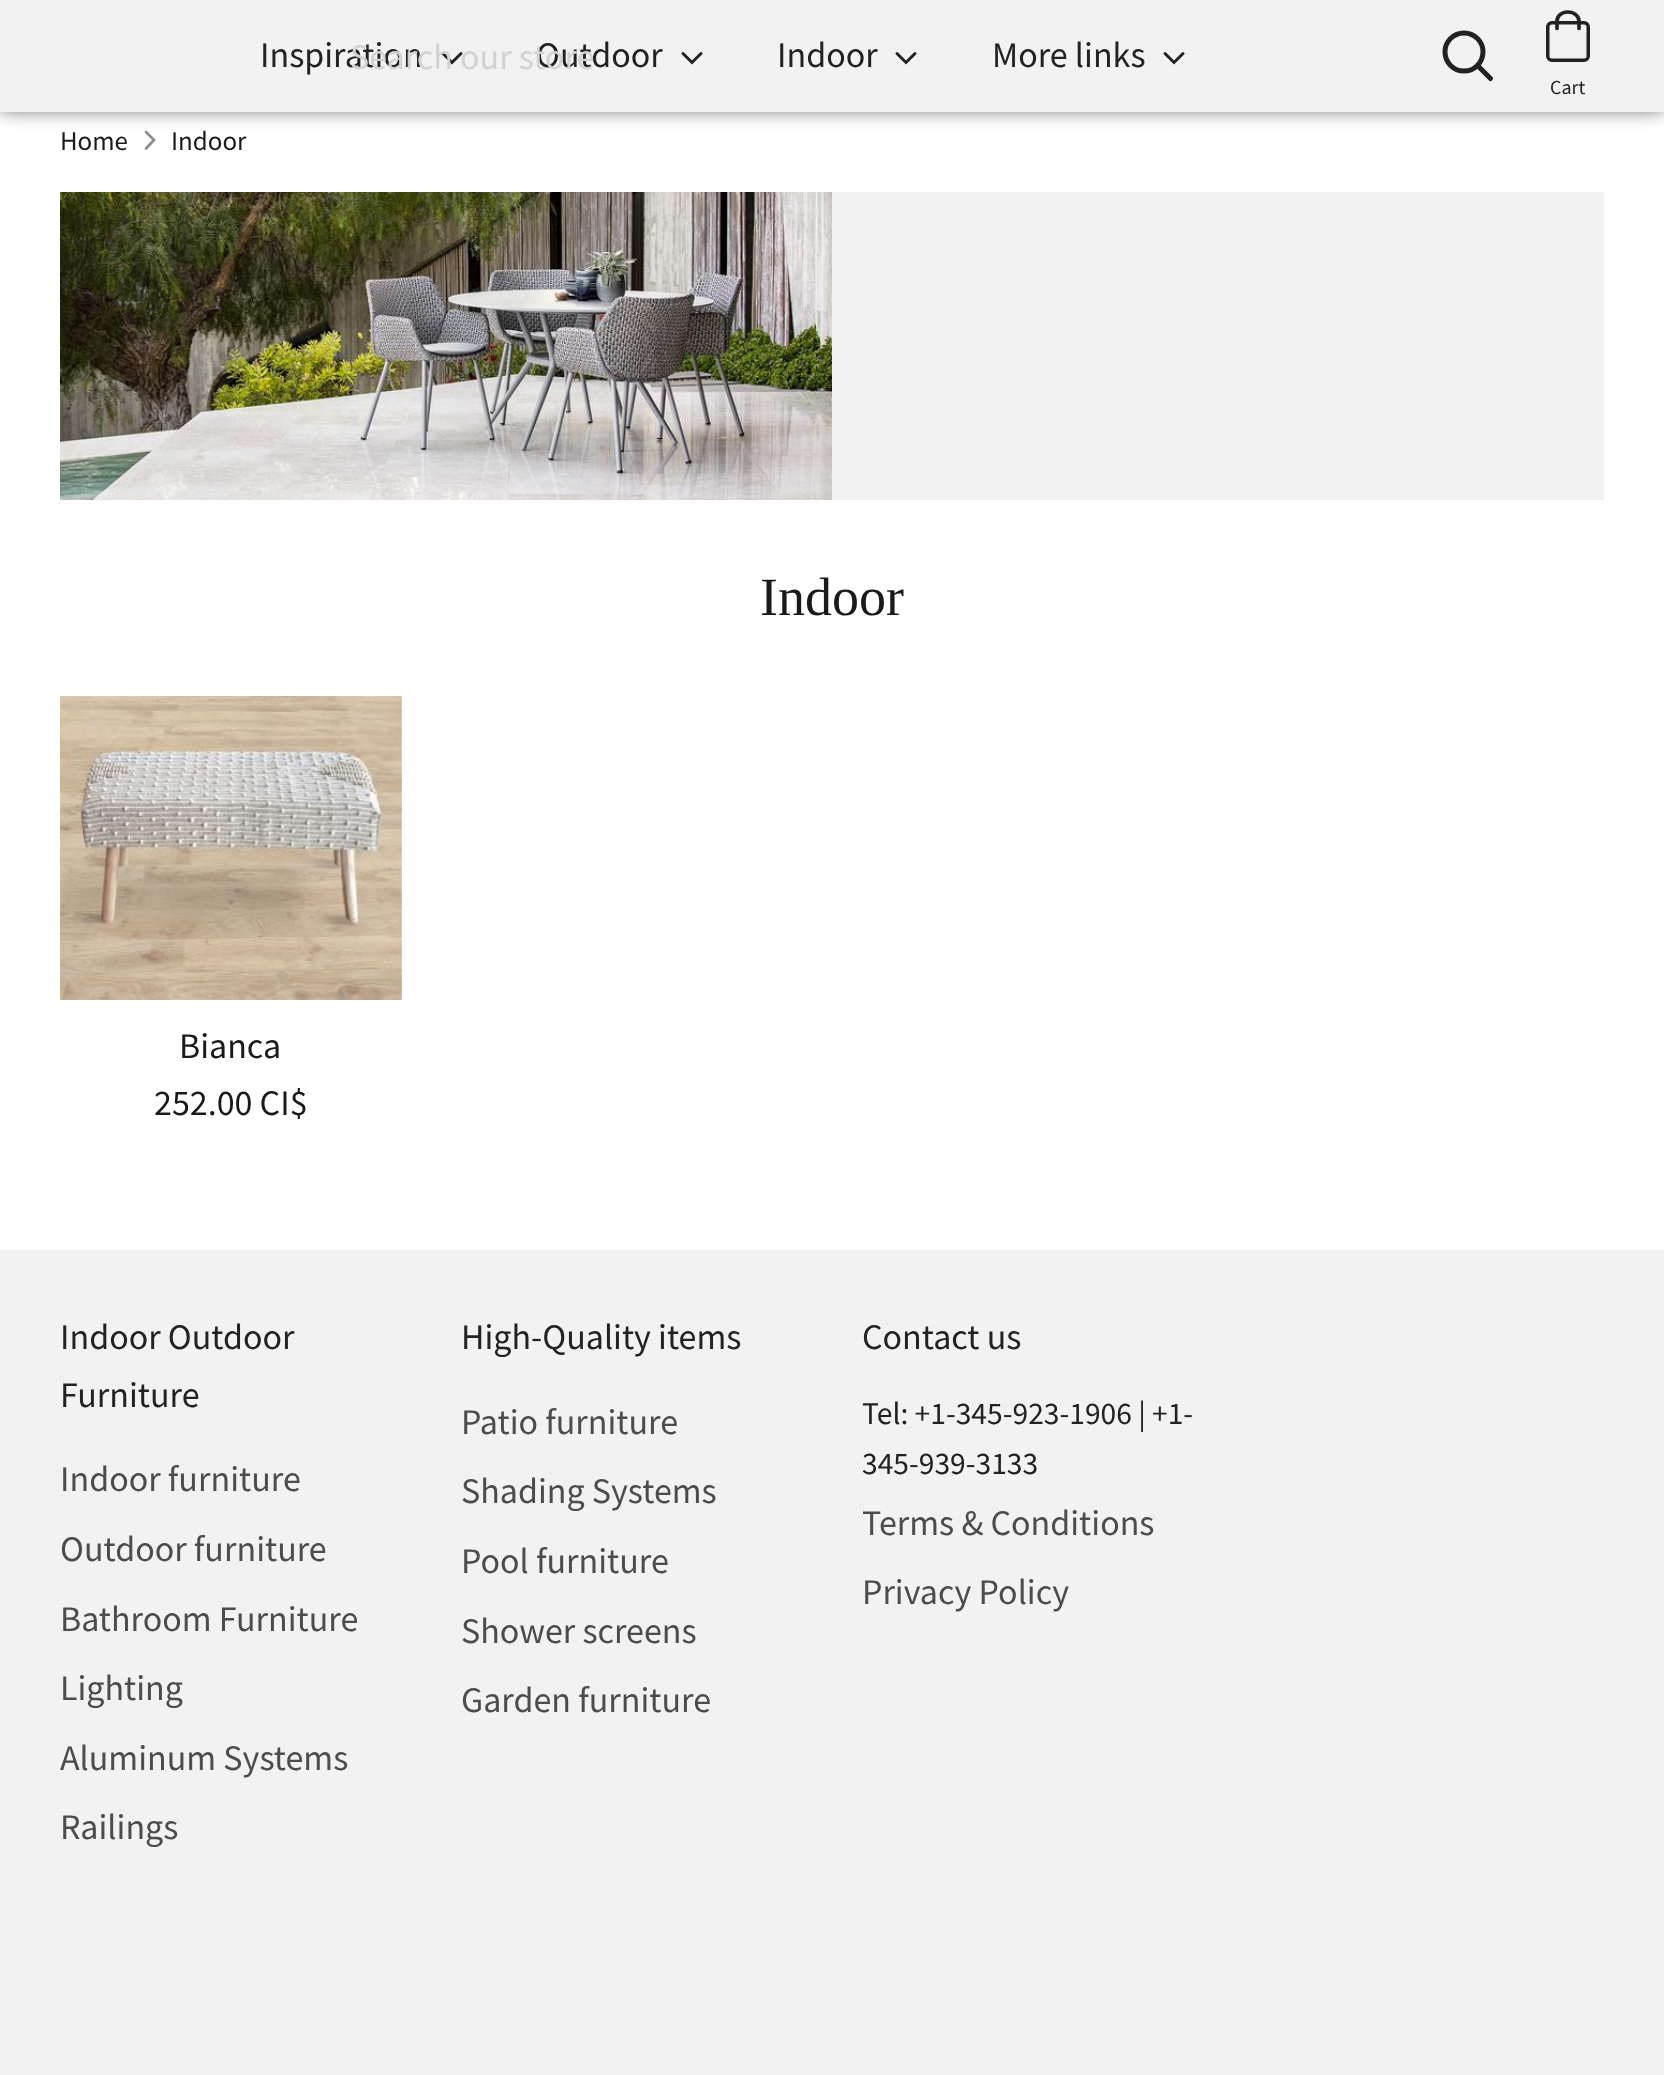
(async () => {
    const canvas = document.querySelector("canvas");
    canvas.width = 1664;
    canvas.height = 2075;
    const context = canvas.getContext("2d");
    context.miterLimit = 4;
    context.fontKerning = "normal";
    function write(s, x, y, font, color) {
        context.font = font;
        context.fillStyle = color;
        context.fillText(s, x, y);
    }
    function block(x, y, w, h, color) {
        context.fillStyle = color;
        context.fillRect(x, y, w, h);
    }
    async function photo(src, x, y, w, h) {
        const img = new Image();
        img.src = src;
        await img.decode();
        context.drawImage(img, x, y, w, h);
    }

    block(0, 0, 1664, 2075, "rgb(255, 255, 255)");
    context.beginPath();
    context.moveTo(146, 148.5);
    context.lineTo(154, 140);
    context.lineTo(146, 132);
    context.strokeStyle = "rgb(141, 141, 141)";
    context.lineWidth = 2.7;
    context.lineCap = "round";
    context.stroke();
    context.fillStyle = "rgba(0, 0, 0, 0.75)";
    context.filter = "blur(10px)";
    context.beginPath();
    context.rect(0, -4, 1664, 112);
    context.fill();
    context.filter = "none";
    block(0, 0, 1664, 112, "rgb(242, 242, 242)");
    write("Inspiration", 260, 67, "36px Source Sans Pro", "rgb(34, 34, 34)");
    context.beginPath();
    context.moveTo(443, 53.5);
    context.lineTo(452, 62.5);
    context.lineTo(461, 53.5);
    context.strokeStyle = "rgb(34, 34, 34)";
    context.lineWidth = 3;
    context.stroke();
    write("Outdoor", 536, 67, "36px Source Sans Pro", "rgb(34, 34, 34)");
    context.beginPath();
    context.moveTo(683, 53.5);
    context.lineTo(692, 62.5);
    context.lineTo(701, 53.5);
    context.stroke();
    write("Indoor", 777, 67, "36px Source Sans Pro", "rgb(34, 34, 34)");
    context.beginPath();
    context.moveTo(897, 53.5);
    context.lineTo(906, 62.5);
    context.lineTo(915, 53.5);
    context.stroke();
    write("More links", 992, 67, "36px Source Sans Pro", "rgb(34, 34, 34)");
    context.beginPath();
    context.moveTo(1165, 53.5);
    context.lineTo(1174, 62.5);
    context.lineTo(1183, 53.5);
    context.stroke();
    write("Search our store", 350, 69, "36px Source Sans Pro", "rgb(210, 210, 210)");
    context.beginPath();
    context.arc(1464, 52, 19, 0, Math.PI * 2);
    context.lineWidth = 5;
    context.stroke();
    context.beginPath();
    context.moveTo(1490.5, 78.5);
    context.lineTo(1477.5, 65.5);
    context.stroke();
    context.beginPath();
    context.roundRect(1547.75, 22.75, 40.5, 37.5, 4.25);
    context.lineWidth = 3.5;
    context.stroke();
    context.beginPath();
    context.moveTo(1557, 28.5);
    context.lineTo(1557, 21);
    context.bezierCurveTo(1557, 16, 1561.5, 12, 1568, 12);
    context.bezierCurveTo(1574, 12, 1579, 16, 1579, 21);
    context.lineTo(1579, 28.5);
    context.lineWidth = 3.7;
    context.stroke();
    write("Cart", 1550, 94, "20px Source Sans Pro", "rgb(34, 34, 34)");
    write("Home", 60, 150, "27px Source Sans Pro", "rgb(26, 26, 26)");
    write("Indoor", 171, 150, "27px Source Sans Pro", "rgb(26, 26, 26)");
    block(832, 192, 772, 308, "rgb(242, 242, 242)");
    await photo("media/1.png", 60, 192, 772, 308);
    write("Indoor", 760, 615, "54px Liberation Serif", "rgb(26, 26, 26)");
    await photo("media/2.png", 60, 696, 342, 304);
    write("Bianca", 179, 1058, "36px Source Sans Pro", "rgb(26, 26, 26)");
    write("252.00 CI$", 154, 1115, "36px Source Sans Pro", "rgb(26, 26, 26)");
    block(0, 1250, 1664, 825, "rgb(242, 242, 242)");
    write("Indoor Outdoor", 60, 1349, "36px Source Sans Pro", "rgb(34, 34, 34)");
    write("Furniture", 60, 1407, "36px Source Sans Pro", "rgb(34, 34, 34)");
    write("Indoor furniture", 60, 1491, "36px Source Sans Pro", "rgb(76, 76, 76)");
    write("Outdoor furniture", 60, 1561, "36px Source Sans Pro", "rgb(76, 76, 76)");
    write("Bathroom Furniture", 60, 1631, "36px Source Sans Pro", "rgb(76, 76, 76)");
    write("Lighting", 60, 1700, "36px Source Sans Pro", "rgb(76, 76, 76)");
    write("Aluminum Systems", 60, 1770, "36px Source Sans Pro", "rgb(76, 76, 76)");
    write("Railings", 60, 1839, "36px Source Sans Pro", "rgb(76, 76, 76)");
    write("High-Quality items", 461, 1349, "36px Source Sans Pro", "rgb(34, 34, 34)");
    write("Patio furniture", 461, 1434, "36px Source Sans Pro", "rgb(76, 76, 76)");
    write("Shading Systems", 461, 1503, "36px Source Sans Pro", "rgb(76, 76, 76)");
    write("Pool furniture", 461, 1573, "36px Source Sans Pro", "rgb(76, 76, 76)");
    write("Shower screens", 461, 1643, "36px Source Sans Pro", "rgb(76, 76, 76)");
    write("Garden furniture", 461, 1712, "36px Source Sans Pro", "rgb(76, 76, 76)");
    write("Contact us", 862, 1349, "36px Source Sans Pro", "rgb(34, 34, 34)");
    write("Tel: +1-345-923-1906 | +1-", 862, 1424, "31.5px Source Sans Pro", "rgb(34, 34, 34)");
    write("345-939-3133", 862, 1474, "31.5px Source Sans Pro", "rgb(34, 34, 34)");
    write("Terms & Conditions", 862, 1535, "36px Source Sans Pro", "rgb(76, 76, 76)");
    write("Privacy Policy", 862, 1604, "36px Source Sans Pro", "rgb(76, 76, 76)");
})();
